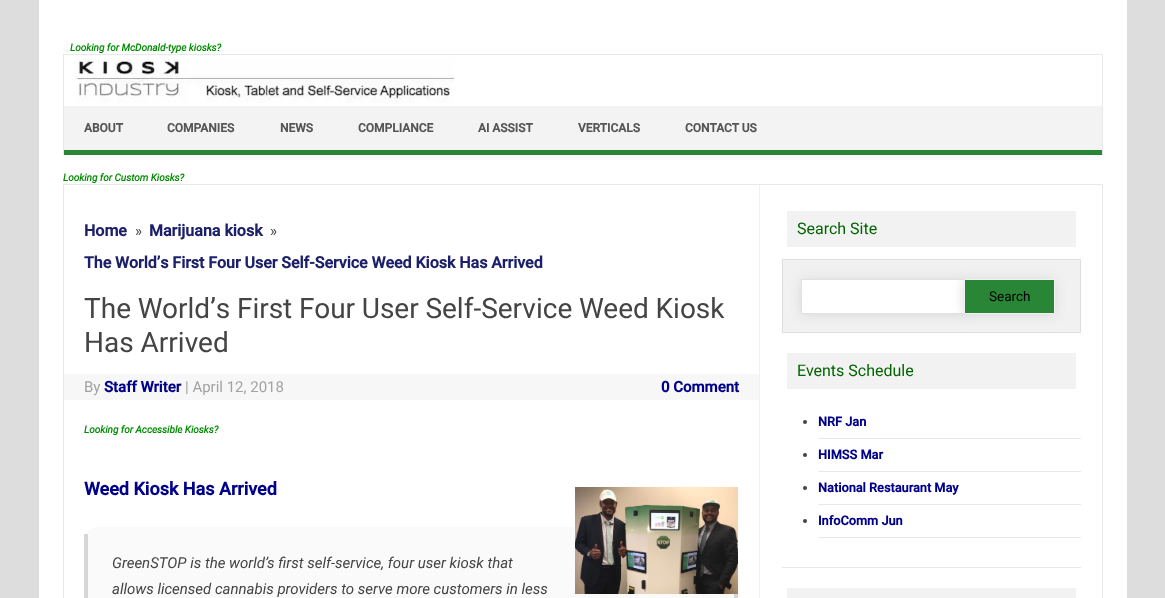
(async () => {
    const canvas = document.querySelector("canvas");
    canvas.width = 1165;
    canvas.height = 598;
    const context = canvas.getContext("2d");
    context.miterLimit = 4;
    context.fontKerning = "normal";
    function write(s, x, y, font, color) {
        context.font = font;
        context.fillStyle = color;
        context.fillText(s, x, y);
    }
    function block(x, y, w, h, color) {
        context.fillStyle = color;
        context.fillRect(x, y, w, h);
    }
    function card(x, y, w, h, r, color) {
        context.fillStyle = color;
        context.beginPath();
        context.roundRect(x, y, w, h, r);
        context.fill();
    }
    async function photo(src, x, y, w, h) {
        const img = new Image();
        img.src = src;
        await img.decode();
        context.drawImage(img, x, y, w, h);
    }

    block(0, 0, 1165, 598, "rgb(221, 221, 221)");
    block(39, 0, 1088, 598, "rgb(255, 255, 255)");
    write("Looking for McDonald-type kiosks?", 70, 51, "italic bold 10px Roboto", "rgb(0, 139, 0)");
    block(63, 54, 1040, 1, "rgb(233, 233, 233)");
    block(1102, 54, 1, 101, "rgb(233, 233, 233)");
    block(63, 54, 1, 101, "rgb(233, 233, 233)");
    await photo("media/1.png", 75, 58, 379, 45);
    block(64, 106, 1038, 44, "rgb(243, 243, 243)");
    block(64, 150, 1038, 5, "rgb(40, 134, 54)");
    write("ABOUT", 84, 132, "bold 12px Roboto", "rgb(85, 85, 85)");
    write("COMPANIES", 167, 132, "bold 12px Roboto", "rgb(85, 85, 85)");
    write("NEWS", 280, 132, "bold 12px Roboto", "rgb(85, 85, 85)");
    write("COMPLIANCE", 358, 132, "bold 12px Roboto", "rgb(85, 85, 85)");
    write("AI ASSIST", 478, 132, "bold 12px Roboto", "rgb(85, 85, 85)");
    write("VERTICALS", 578, 132, "bold 12px Roboto", "rgb(85, 85, 85)");
    write("CONTACT US", 685, 132, "bold 12px Roboto", "rgb(85, 85, 85)");
    write("Looking for Custom Kiosks?", 63, 181, "italic bold 10px Roboto", "rgb(0, 139, 0)");
    context.strokeStyle = "rgb(233, 233, 233)";
    context.strokeRect(63.5, 184.5, 1039, 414);
    block(759, 185, 1, 413, "rgb(241, 241, 241)");
    write("Home", 84, 236, "bold 16px Roboto", "rgb(28, 31, 105)");
    write("»", 135, 236, "15px Roboto", "rgb(68, 68, 68)");
    write("Marijuana kiosk", 149, 236, "bold 16px Roboto", "rgb(28, 31, 105)");
    write("»", 270, 236, "15px Roboto", "rgb(68, 68, 68)");
    context.wordSpacing = "-0.1px";
    write("The World’s First Four User Self-Service Weed Kiosk Has Arrived", 84, 268, "bold 16px Roboto", "rgb(28, 31, 105)");
    context.wordSpacing = "-0.25px";
    write("The World’s First Four User Self-Service Weed Kiosk", 84, 318, "28px Roboto", "rgb(68, 68, 68)");
    context.wordSpacing = "0px";
    write("Has Arrived", 84, 352, "28px Roboto", "rgb(68, 68, 68)");
    block(64, 374, 695, 26, "rgb(247, 247, 247)");
    write("By", 84, 392, "15px Roboto", "rgb(162, 162, 162)");
    write("Staff Writer", 104, 392, "bold 15px Roboto", "rgb(0, 0, 139)");
    write("| April 12, 2018", 185, 392, "15px Roboto", "rgb(162, 162, 162)");
    write("0 Comment", 661, 392, "bold 15px Roboto", "rgb(0, 0, 139)");
    write("Looking for Accessible Kiosks?", 84, 433, "italic bold 10px Roboto", "rgb(0, 139, 0)");
    write("Weed Kiosk Has Arrived", 84, 495, "bold 18px Roboto", "rgb(0, 0, 139)");
    card(84, 527, 654, 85, 14, "rgb(250, 250, 250)");
    await photo("media/2.png", 575, 487, 163, 107);
    block(734, 594, 4, 4, "rgb(214, 214, 214)");
    block(84, 534, 4, 64, "rgb(214, 214, 214)");
    write("GreenSTOP is the world’s first self-service, four user kiosk that", 112, 568, "italic 15px Roboto", "rgb(68, 68, 68)");
    write("allows licensed cannabis providers to serve more customers in less", 112, 594, "italic 15px Roboto", "rgb(68, 68, 68)");
    block(787, 211, 289, 36, "rgb(242, 242, 242)");
    write("Search Site", 797, 234, "16px Roboto", "rgb(0, 100, 0)");
    context.fillStyle = "rgb(241, 241, 241)";
    context.beginPath();
    context.rect(782.5, 259.5, 298, 73);
    context.fill();
    context.strokeStyle = "rgb(221, 221, 221)";
    context.stroke();
    context.fillStyle = "rgb(217, 217, 217)";
    context.filter = "blur(6px)";
    context.beginPath();
    context.rect(801, 280, 167, 35);
    context.fill();
    context.filter = "none";
    block(802, 280, 162, 33, "rgb(255, 255, 255)");
    context.strokeStyle = "rgb(225, 225, 225)";
    context.strokeRect(801.5, 279.5, 166, 34);
    context.fillStyle = "rgb(217, 217, 217)";
    context.filter = "blur(6px)";
    context.beginPath();
    context.rect(964, 280, 91, 35);
    context.fill();
    context.filter = "none";
    context.fillStyle = "rgb(40, 134, 54)";
    context.beginPath();
    context.rect(964.5, 279.5, 90, 34);
    context.fill();
    context.strokeStyle = "rgb(241, 241, 241)";
    context.stroke();
    write("Search", 989, 301, "13.5px Roboto", "rgb(0, 0, 0)");
    block(787, 353, 289, 36, "rgb(242, 242, 242)");
    write("Events Schedule", 797, 376, "16px Roboto", "rgb(0, 100, 0)");
    block(782, 567, 299, 1, "rgb(233, 233, 233)");
    block(818, 438, 263, 1, "rgb(233, 233, 233)");
    context.fillStyle = "rgb(68, 68, 68)";
    context.beginPath();
    context.arc(805, 422, 2, 0, Math.PI * 2);
    context.fill();
    write("NRF Jan", 818, 426, "bold 12.75px Roboto", "rgb(0, 0, 139)");
    block(818, 471, 263, 1, "rgb(233, 233, 233)");
    context.fillStyle = "rgb(68, 68, 68)";
    context.beginPath();
    context.arc(805, 455, 2, 0, Math.PI * 2);
    context.fill();
    write("HIMSS Mar", 818, 459, "bold 12.75px Roboto", "rgb(0, 0, 139)");
    block(818, 504, 263, 1, "rgb(233, 233, 233)");
    context.fillStyle = "rgb(68, 68, 68)";
    context.beginPath();
    context.arc(805, 488, 2, 0, Math.PI * 2);
    context.fill();
    write("National Restaurant May", 818, 492, "bold 12.75px Roboto", "rgb(0, 0, 139)");
    block(818, 537, 263, 1, "rgb(233, 233, 233)");
    context.fillStyle = "rgb(68, 68, 68)";
    context.beginPath();
    context.arc(805, 521, 2, 0, Math.PI * 2);
    context.fill();
    write("InfoComm Jun", 818, 525, "bold 12.75px Roboto", "rgb(0, 0, 139)");
    block(787, 588, 289, 10, "rgb(242, 242, 242)");
})();
